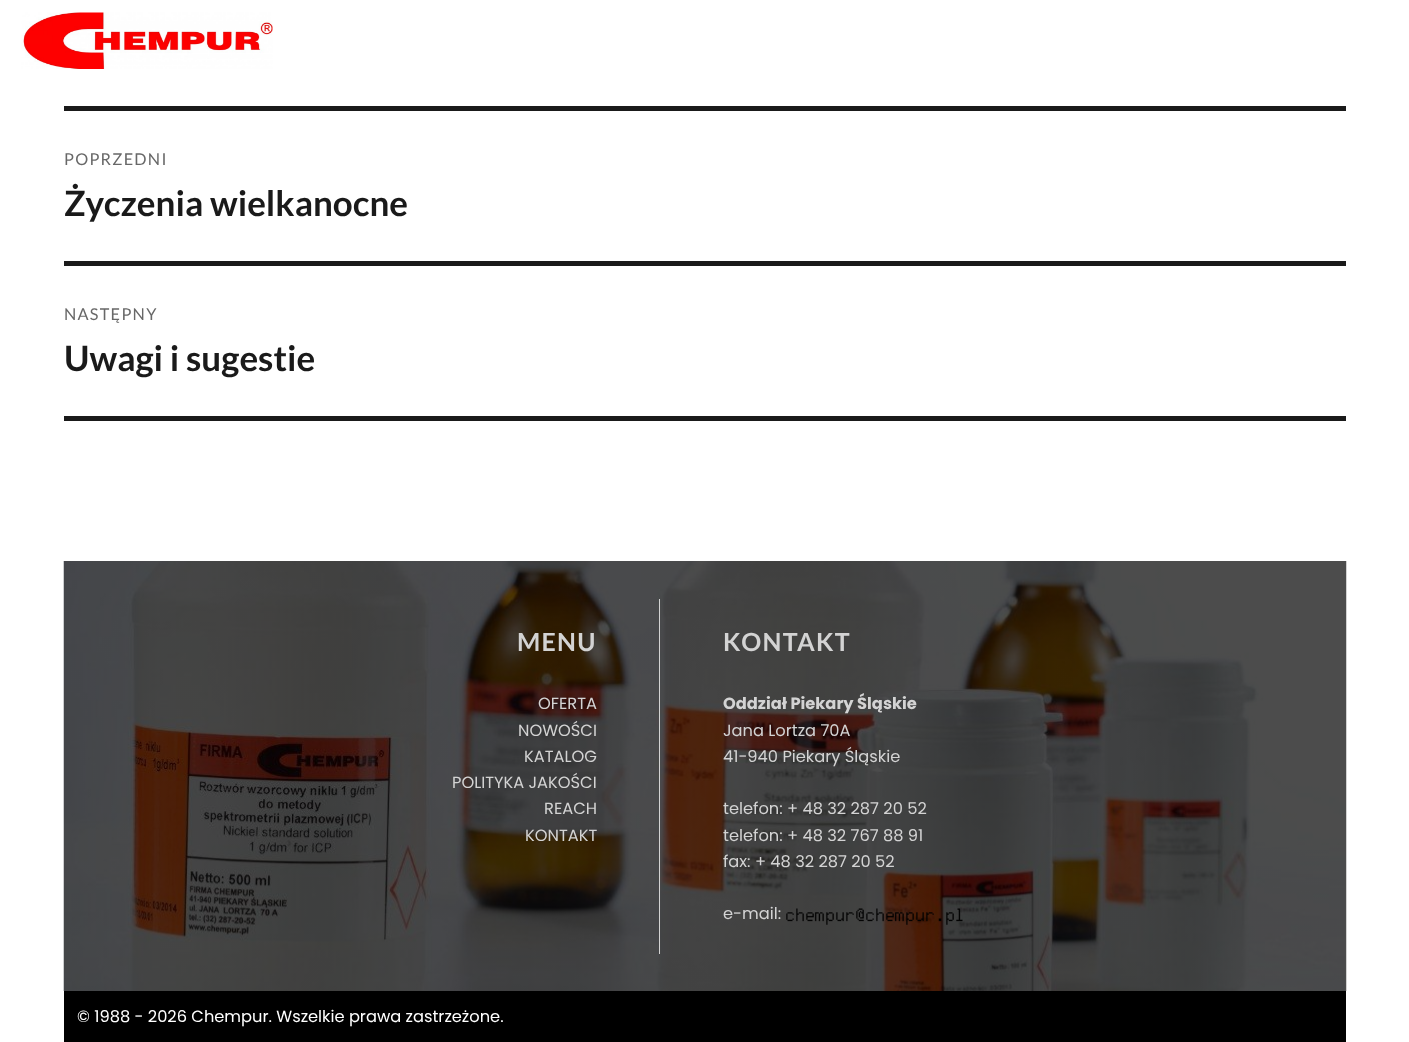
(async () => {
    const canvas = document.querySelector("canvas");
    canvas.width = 1409;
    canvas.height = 1042;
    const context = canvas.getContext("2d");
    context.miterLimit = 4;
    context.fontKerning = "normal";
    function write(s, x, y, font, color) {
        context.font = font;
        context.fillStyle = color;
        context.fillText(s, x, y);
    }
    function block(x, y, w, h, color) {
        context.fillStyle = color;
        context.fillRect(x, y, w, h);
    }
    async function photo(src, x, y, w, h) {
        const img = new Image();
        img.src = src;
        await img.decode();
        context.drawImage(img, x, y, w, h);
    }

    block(0, 0, 1409, 1042, "rgb(255, 255, 255)");
    await photo("media/1.png", 21, 12, 252, 57);
    block(64, 106, 1282, 5, "rgb(26, 26, 26)");
    block(64, 416, 1282, 5, "rgb(26, 26, 26)");
    context.letterSpacing = "1.25px";
    write("POPRZEDNI", 64, 165, "16.25px Lato", "rgb(104, 104, 104)");
    context.letterSpacing = "0px";
    write("Życzenia wielkanocne", 64, 216, "bold 35px Lato", "rgb(26, 26, 26)");
    block(64, 261, 1282, 5, "rgb(26, 26, 26)");
    context.letterSpacing = "1.25px";
    write("NASTĘPNY", 64, 320, "16.25px Lato", "rgb(104, 104, 104)");
    context.letterSpacing = "0px";
    write("Uwagi i sugestie", 64, 371, "bold 35px Lato", "rgb(26, 26, 26)");
    await photo("media/2.png", 63, 561, 1284, 430);
    context.letterSpacing = "1.25px";
    write("MENU", 517, 651, "bold 25px Lato", "rgb(211, 211, 211)");
    context.letterSpacing = "0px";
    write("OFERTA", 538, 709, "16.25px Poppins", "rgb(211, 211, 211)");
    write("NOWOŚCI", 518, 736, "16.25px Poppins", "rgb(211, 211, 211)");
    write("KATALOG", 524, 762, "16.25px Poppins", "rgb(211, 211, 211)");
    write("POLITYKA JAKOŚCI", 452, 788, "16.25px Poppins", "rgb(211, 211, 211)");
    write("REACH", 544, 814, "16.25px Poppins", "rgb(211, 211, 211)");
    write("KONTAKT", 525, 841, "16.25px Poppins", "rgb(211, 211, 211)");
    block(659, 599, 1, 355, "rgb(211, 211, 211)");
    context.letterSpacing = "1.25px";
    write("KONTAKT", 723, 651, "bold 25px Lato", "rgb(211, 211, 211)");
    context.letterSpacing = "0px";
    write("Oddział Piekary Śląskie", 723, 709, "bold 16.25px Poppins", "rgb(211, 211, 211)");
    write("Jana Lortza 70A", 723, 736, "16.25px Poppins", "rgb(211, 211, 211)");
    write("41-940 Piekary Śląskie", 723, 762, "16.25px Poppins", "rgb(211, 211, 211)");
    write("telefon: + 48 32 287 20 52", 723, 814, "16.25px Poppins", "rgb(211, 211, 211)");
    write("telefon: + 48 32 767 88 91", 723, 841, "16.25px Poppins", "rgb(211, 211, 211)");
    write("fax: + 48 32 287 20 52", 723, 867, "16.25px Poppins", "rgb(211, 211, 211)");
    write("e-mail:", 723, 919, "16.25px Poppins", "rgb(211, 211, 211)");
    await photo("media/3.png", 786, 908, 177, 17);
    block(64, 991, 1282, 51, "rgb(0, 0, 0)");
    write("© 1988 - 2026 Chempur. Wszelkie prawa zastrzeżone.", 77, 1022, "16.25px Poppins", "rgb(255, 255, 255)");
})();
